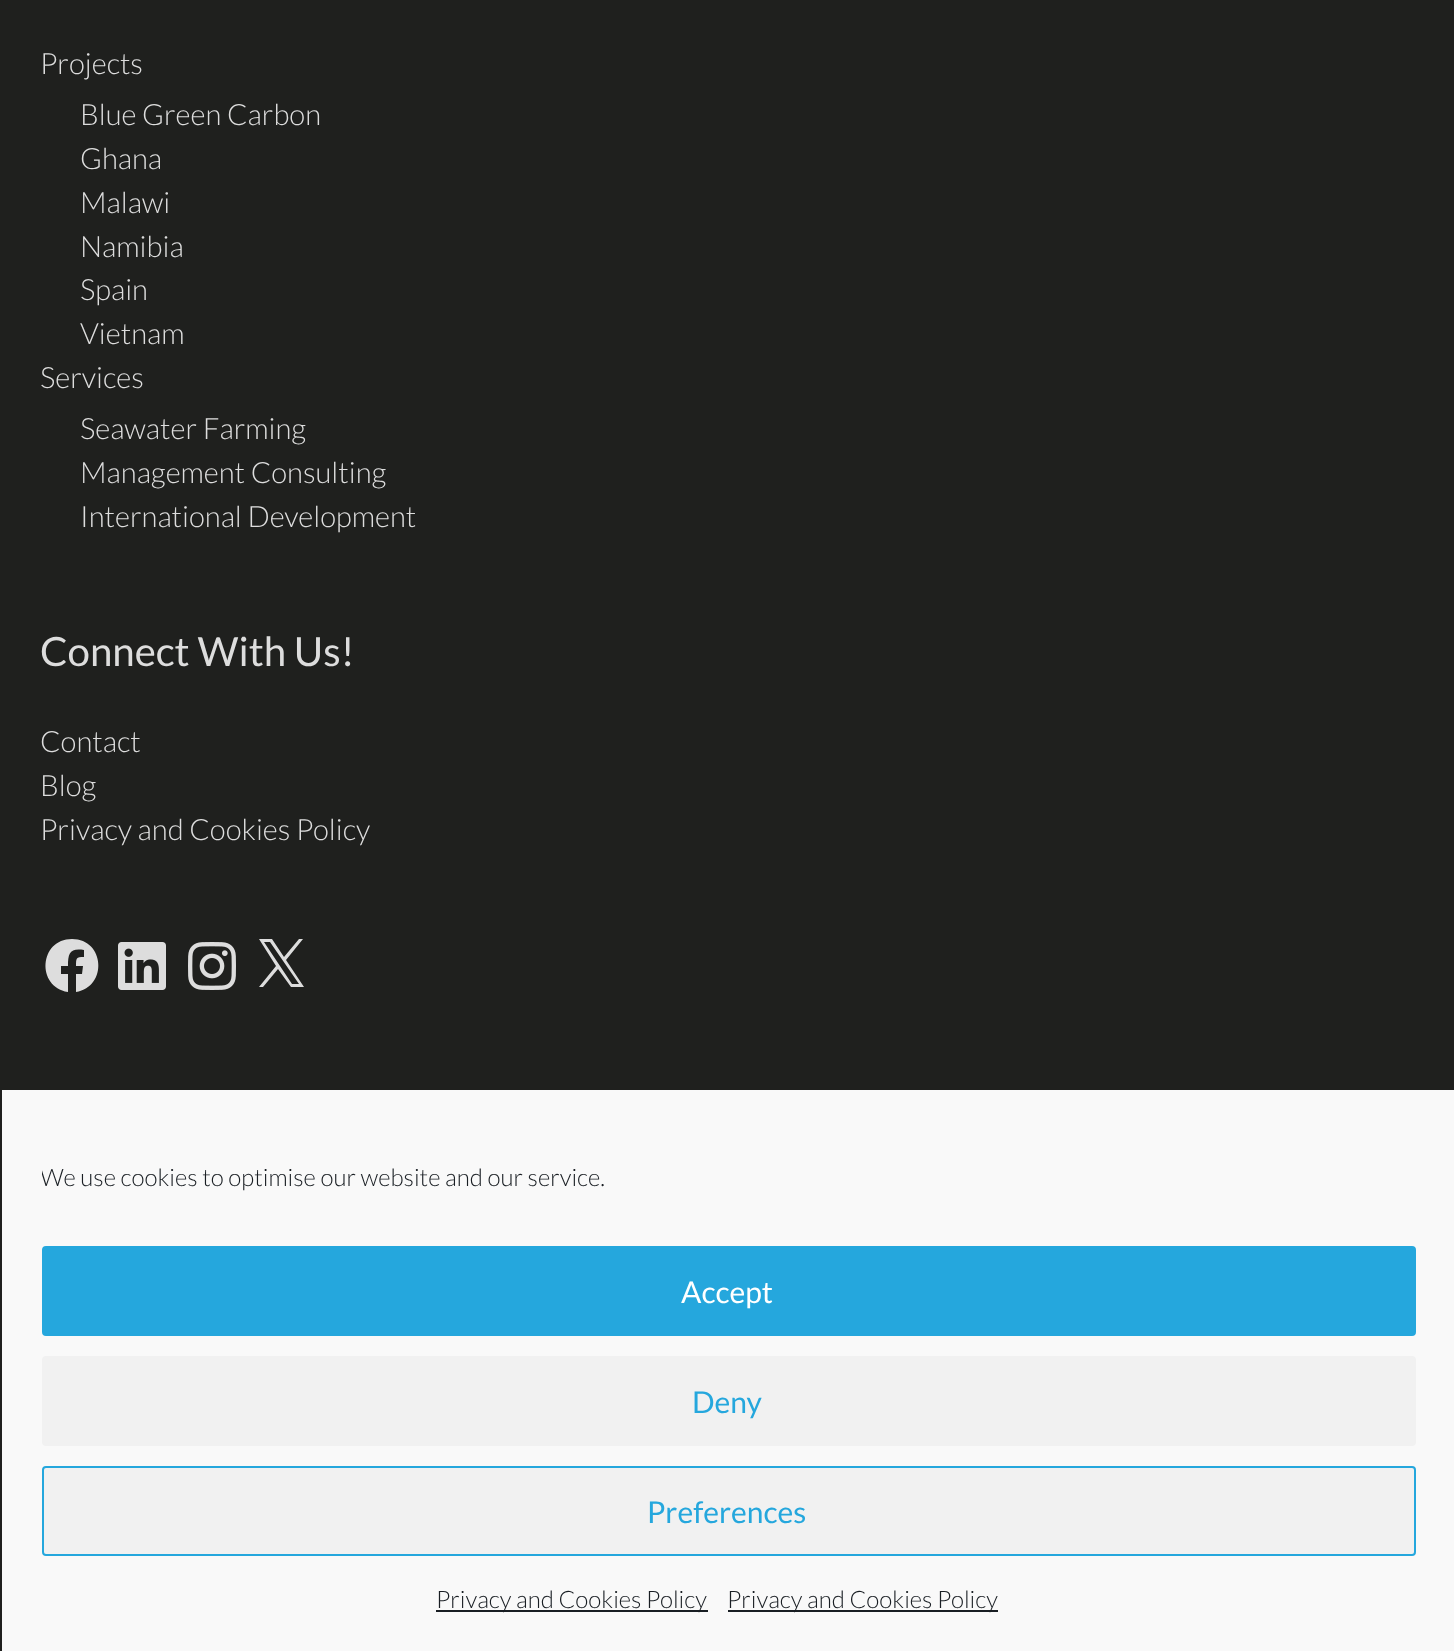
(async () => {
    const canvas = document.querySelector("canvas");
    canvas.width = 1454;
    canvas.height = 1651;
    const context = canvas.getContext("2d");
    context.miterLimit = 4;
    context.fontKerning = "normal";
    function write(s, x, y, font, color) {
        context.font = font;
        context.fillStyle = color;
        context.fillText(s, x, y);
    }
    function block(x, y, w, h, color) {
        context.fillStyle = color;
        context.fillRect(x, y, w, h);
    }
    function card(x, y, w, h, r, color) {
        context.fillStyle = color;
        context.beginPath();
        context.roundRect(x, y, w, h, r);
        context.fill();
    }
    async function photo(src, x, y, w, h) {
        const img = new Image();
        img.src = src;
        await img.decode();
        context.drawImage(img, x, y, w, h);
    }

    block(0, 0, 1454, 1651, "rgb(31, 32, 30)");
    write("Projects", 40, 74, "300 29.25px Lato", "rgb(221, 221, 221)");
    write("Blue Green Carbon", 80, 125, "300 29.25px Lato", "rgb(221, 221, 221)");
    write("Ghana", 80, 169, "300 29.25px Lato", "rgb(221, 221, 221)");
    write("Malawi", 80, 213, "300 29.25px Lato", "rgb(221, 221, 221)");
    write("Namibia", 80, 257, "300 29.25px Lato", "rgb(221, 221, 221)");
    write("Spain", 80, 300, "300 29.25px Lato", "rgb(221, 221, 221)");
    write("Vietnam", 80, 344, "300 29.25px Lato", "rgb(221, 221, 221)");
    write("Services", 40, 388, "300 29.25px Lato", "rgb(221, 221, 221)");
    write("Seawater Farming", 80, 439, "300 29.25px Lato", "rgb(221, 221, 221)");
    write("Management Consulting", 80, 483, "300 29.25px Lato", "rgb(221, 221, 221)");
    write("International Development", 80, 527, "300 29.25px Lato", "rgb(221, 221, 221)");
    write("Connect With Us!", 40, 666, "40.25px Lato", "rgb(221, 221, 221)");
    write("Contact", 40, 752, "300 29.25px Lato", "rgb(221, 221, 221)");
    write("Blog", 40, 796, "300 29.25px Lato", "rgb(221, 221, 221)");
    write("Privacy and Cookies Policy", 40, 840, "300 29.25px Lato", "rgb(221, 221, 221)");
    context.beginPath();
    context.moveTo(72, 939);
    context.bezierCurveTo(39, 939, 36, 987, 68, 992);
    context.lineTo(68, 974);
    context.lineTo(61, 974);
    context.lineTo(61, 966);
    context.lineTo(68, 966);
    context.bezierCurveTo(68, 953, 70, 948, 84, 950);
    context.lineTo(84, 957);
    context.bezierCurveTo(76, 957, 76, 958, 76, 966);
    context.lineTo(83, 966);
    context.lineTo(82, 974);
    context.lineTo(76, 974);
    context.lineTo(76, 992);
    context.bezierCurveTo(108, 987, 105, 939, 72, 939);
    context.closePath();
    context.fill();
    await photo("media/1.png", 118, 942, 48, 48);
    await photo("media/2.png", 188, 942, 48, 48);
    context.beginPath();
    context.moveTo(286, 960);
    context.lineTo(303, 939);
    context.lineTo(299, 939);
    context.lineTo(284, 957);
    context.lineTo(272, 939);
    context.lineTo(259, 939);
    context.lineTo(276, 966);
    context.lineTo(259, 987);
    context.lineTo(263, 987);
    context.lineTo(278, 969);
    context.lineTo(291, 987);
    context.lineTo(304, 987);
    context.closePath();
    context.moveTo(280, 966);
    context.lineTo(264, 942);
    context.lineTo(270, 942);
    context.lineTo(299, 984);
    context.lineTo(292, 984);
    context.closePath();
    context.fill();
    block(2, 1090, 1452, 561, "rgb(249, 249, 249)");
    context.save();
    context.beginPath();
    context.rect(42, 1160, 1374, 46);
    context.clip();
    write("We use cookies to optimise our website and our service.", 40, 1186, "300 24px Lato", "rgb(25, 30, 35)");
    context.restore();
    context.fillStyle = "rgb(37, 167, 221)";
    context.beginPath();
    context.roundRect(43, 1247, 1372, 88, 3);
    context.fill();
    context.strokeStyle = "rgb(37, 167, 221)";
    context.lineWidth = 2;
    context.stroke();
    write("Accept", 681, 1303, "30px Lato", "rgb(255, 255, 255)");
    card(42, 1356, 1374, 90, 4, "rgb(241, 241, 241)");
    write("Deny", 692, 1413, "30px Lato", "rgb(37, 167, 221)");
    context.fillStyle = "rgb(241, 241, 241)";
    context.beginPath();
    context.roundRect(43, 1467, 1372, 88, 3);
    context.fill();
    context.stroke();
    write("Preferences", 647, 1523, "30px Lato", "rgb(37, 167, 221)");
    block(436, 1610, 272, 2, "rgb(25, 30, 35)");
    write("Privacy and Cookies Policy", 436, 1608, "300 24px Lato", "rgb(25, 30, 35)");
    block(728, 1610, 270, 2, "rgb(25, 30, 35)");
    write("Privacy and Cookies Policy", 727, 1608, "300 24px Lato", "rgb(25, 30, 35)");
})();
